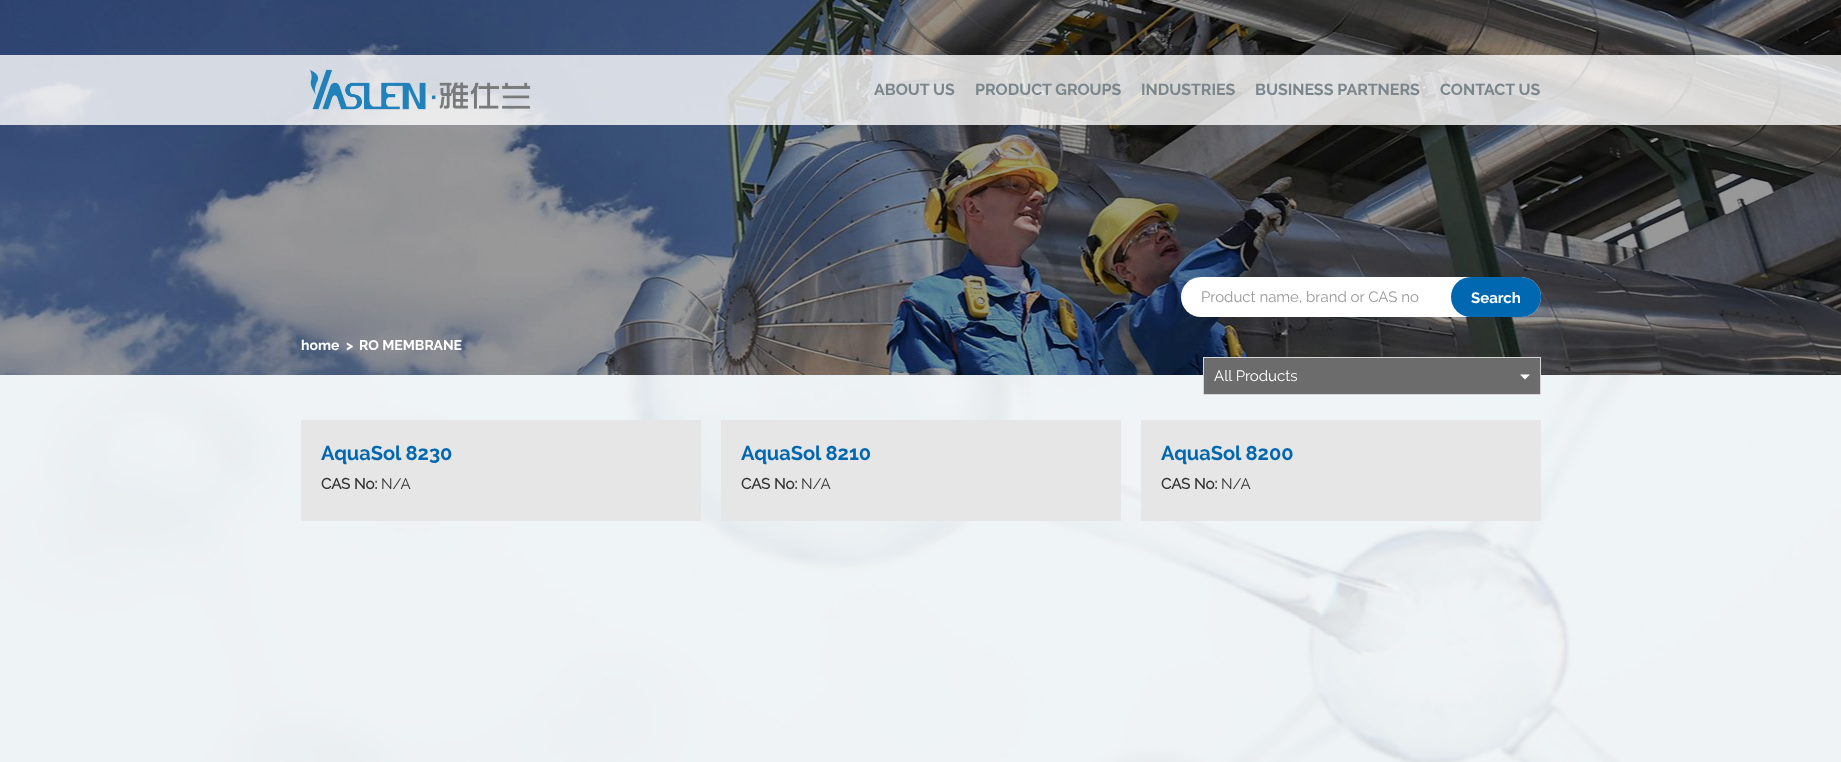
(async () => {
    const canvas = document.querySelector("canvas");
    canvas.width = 1841;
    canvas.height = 762;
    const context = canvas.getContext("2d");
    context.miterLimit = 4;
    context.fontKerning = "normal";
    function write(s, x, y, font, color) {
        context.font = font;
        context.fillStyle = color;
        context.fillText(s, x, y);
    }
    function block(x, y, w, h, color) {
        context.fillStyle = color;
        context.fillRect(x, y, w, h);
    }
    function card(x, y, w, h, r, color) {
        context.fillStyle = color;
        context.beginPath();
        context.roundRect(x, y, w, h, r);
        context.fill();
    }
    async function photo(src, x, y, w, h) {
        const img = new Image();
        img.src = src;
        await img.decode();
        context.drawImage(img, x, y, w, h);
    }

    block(0, 0, 1841, 762, "rgb(255, 255, 255)");
    await photo("media/3.png", 0, 0, 1841, 375);
    block(0, 55, 1841, 70, "rgba(255, 255, 255, 0.8)");
    await photo("media/1.png", 309, 69, 222, 41);
    write("ABOUT US", 874, 95, "bold 16px Raleway", "rgb(122, 134, 140)");
    write("PRODUCT GROUPS", 975, 95, "bold 16px Raleway", "rgb(122, 134, 140)");
    write("INDUSTRIES", 1141, 95, "bold 16px Raleway", "rgb(122, 134, 140)");
    write("BUSINESS PARTNERS", 1255, 95, "bold 16px Raleway", "rgb(122, 134, 140)");
    write("CONTACT US", 1440, 95, "bold 16px Raleway", "rgb(122, 134, 140)");
    await photo("media/2.png", 0, 375, 1841, 387);
    card(1181, 277, 360, 40, 20, "rgb(255, 255, 255)");
    write("Product name, brand or CAS no", 1201, 302, "15px Raleway", "rgb(153, 153, 153)");
    card(1451, 277, 90, 40, 20, "rgb(0, 103, 177)");
    write("Search", 1471, 303, "bold 15px Raleway", "rgb(255, 255, 255)");
    context.strokeStyle = "rgb(214, 214, 214)";
    context.strokeRect(1203.5, 357.5, 337, 37);
    block(1204, 358, 336, 36, "rgb(108, 108, 108)");
    write("All Products", 1214, 381, "15px Raleway", "rgb(255, 255, 255)");
    context.beginPath();
    context.moveTo(1520, 374.5);
    context.lineTo(1530, 374.5);
    context.lineTo(1525, 379.5);
    context.closePath();
    context.fill();
    block(301, 420, 400, 101, "rgb(230, 230, 230)");
    write("AquaSol 8230", 321, 460, "bold 20px Raleway", "rgb(0, 103, 177)");
    write("CAS No:", 321, 489, "bold 15px 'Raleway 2'", "rgb(51, 51, 51)");
    write("N/A", 381, 489, "15px Raleway", "rgb(51, 51, 51)");
    block(721, 420, 400, 101, "rgb(230, 230, 230)");
    write("AquaSol 8210", 741, 460, "bold 20px Raleway", "rgb(0, 103, 177)");
    write("CAS No:", 741, 489, "bold 15px 'Raleway 2'", "rgb(51, 51, 51)");
    write("N/A", 801, 489, "15px Raleway", "rgb(51, 51, 51)");
    block(1141, 420, 400, 101, "rgb(230, 230, 230)");
    write("AquaSol 8200", 1161, 460, "bold 20px Raleway", "rgb(0, 103, 177)");
    write("CAS No:", 1161, 489, "bold 15px 'Raleway 2'", "rgb(51, 51, 51)");
    write("N/A", 1221, 489, "15px Raleway", "rgb(51, 51, 51)");
    write("home", 301, 350, "bold 14px Raleway", "rgb(255, 255, 255)");
    write(">", 346, 350, "bold 14px Raleway", "rgb(255, 255, 255)");
    write("RO MEMBRANE", 359, 350, "bold 14px Raleway", "rgb(255, 255, 255)");
})();
